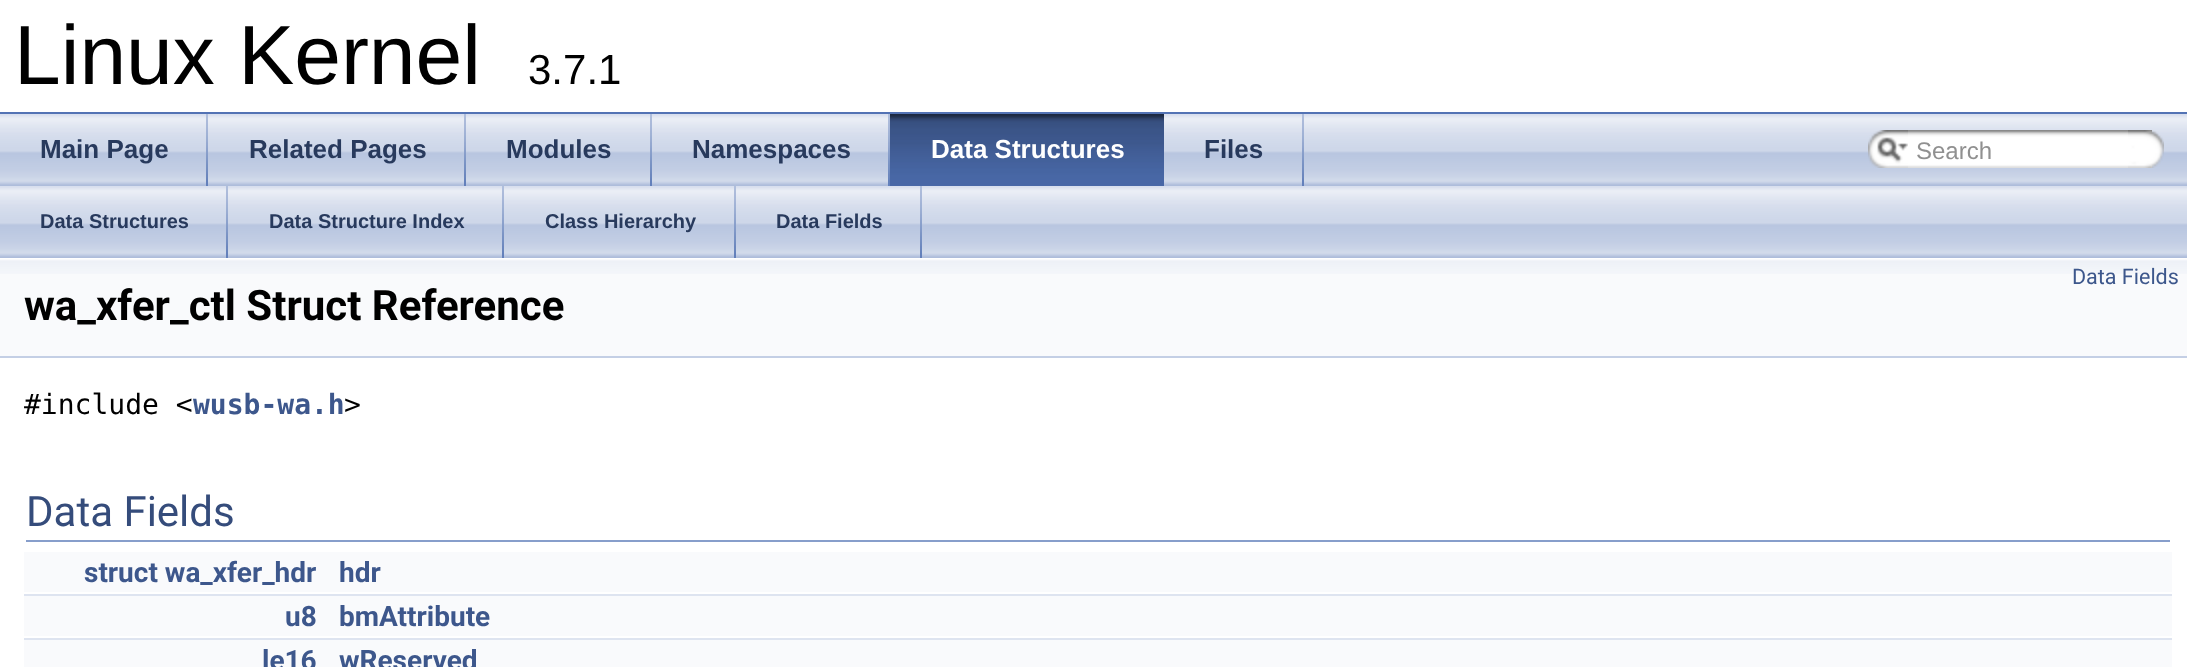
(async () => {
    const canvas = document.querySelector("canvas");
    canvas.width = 2187;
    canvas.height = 667;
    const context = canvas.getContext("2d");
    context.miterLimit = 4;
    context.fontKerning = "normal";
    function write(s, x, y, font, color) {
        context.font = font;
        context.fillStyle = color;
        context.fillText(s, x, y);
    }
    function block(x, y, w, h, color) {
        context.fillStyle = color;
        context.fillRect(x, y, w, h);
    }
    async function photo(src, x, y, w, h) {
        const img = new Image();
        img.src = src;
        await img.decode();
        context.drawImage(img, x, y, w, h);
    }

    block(0, 0, 2187, 667, "rgb(255, 255, 255)");
    block(0, 112, 2187, 2, "rgb(83, 115, 180)");
    write("Linux Kernel", 14, 84, "84px Liberation Sans", "rgb(0, 0, 0)");
    write("3.7.1", 528, 84, "42px Liberation Sans", "rgb(0, 0, 0)");
    await photo("media/1.png", 0, 114, 2187, 72);
    await photo("media/2.png", 206, 114, 2, 72);
    write("Main Page", 40, 158, "bold 26px Liberation Sans", "rgb(40, 58, 93)");
    await photo("media/2.png", 464, 114, 2, 72);
    write("Related Pages", 249, 158, "bold 26px Liberation Sans", "rgb(40, 58, 93)");
    await photo("media/2.png", 650, 114, 2, 72);
    write("Modules", 506, 158, "bold 26px Liberation Sans", "rgb(40, 58, 93)");
    await photo("media/2.png", 888, 114, 2, 72);
    write("Namespaces", 692, 158, "bold 26px Liberation Sans", "rgb(40, 58, 93)");
    await photo("media/3.png", 890, 114, 274, 72);
    write("Data Structures", 931, 158, "bold 26px Liberation Sans", "rgb(255, 255, 255)");
    await photo("media/2.png", 1302, 114, 2, 72);
    write("Files", 1204, 158, "bold 26px Liberation Sans", "rgb(40, 58, 93)");
    await photo("media/4.png", 1868, 130, 40, 38);
    await photo("media/5.png", 1877, 137, 31, 26);
    await photo("media/6.png", 1908, 130, 244, 38);
    write("Search", 1916, 159, "24px Liberation Sans", "rgb(144, 144, 144)");
    await photo("media/7.png", 2128, 130, 36, 38);
    await photo("media/1.png", 0, 186, 2187, 72);
    await photo("media/2.png", 226, 186, 2, 72);
    write("Data Structures", 40, 228, "bold 20px Liberation Sans", "rgb(40, 58, 93)");
    await photo("media/2.png", 502, 186, 2, 72);
    write("Data Structure Index", 269, 228, "bold 20px Liberation Sans", "rgb(40, 58, 93)");
    await photo("media/2.png", 734, 186, 2, 72);
    write("Class Hierarchy", 545, 228, "bold 20px Liberation Sans", "rgb(40, 58, 93)");
    await photo("media/2.png", 920, 186, 2, 72);
    write("Data Fields", 776, 228, "bold 20px Liberation Sans", "rgb(40, 58, 93)");
    block(0, 274, 2187, 82, "rgb(249, 250, 252)");
    await photo("media/8.png", 0, 258, 2187, 16);
    block(0, 356, 2187, 2, "rgb(196, 207, 229)");
    write("Data Fields", 2072, 284, "21.5px Roboto", "rgb(61, 87, 140)");
    write("wa_xfer_ctl Struct Reference", 24, 320, "bold 42px Roboto", "rgb(0, 0, 0)");
    write("#include <", 24, 414, "28px DejaVu Sans Mono", "rgb(0, 0, 0)");
    write("wusb-wa.h", 193, 414, "bold 28px DejaVu Sans Mono", "rgb(61, 87, 140)");
    write(">", 344, 414, "28px DejaVu Sans Mono", "rgb(0, 0, 0)");
    block(26, 540, 2144, 2, "rgb(135, 158, 203)");
    write("Data Fields", 26, 526, "42px Roboto", "rgb(53, 76, 123)");
    block(24, 552, 2148, 40, "rgb(249, 250, 252)");
    write("struct wa_xfer_hdr", 84, 582, "bold 28px Roboto", "rgb(61, 87, 140)");
    write("hdr", 339, 582, "bold 28px Roboto", "rgb(61, 87, 140)");
    block(24, 594, 2148, 2, "rgb(222, 228, 240)");
    block(24, 596, 2148, 40, "rgb(249, 250, 252)");
    write("u8", 285, 626, "bold 28px Roboto", "rgb(61, 87, 140)");
    write("bmAttribute", 339, 626, "bold 28px Roboto", "rgb(61, 87, 140)");
    block(24, 638, 2148, 2, "rgb(222, 228, 240)");
    block(24, 640, 2148, 27, "rgb(249, 250, 252)");
    write("le16", 262, 670, "bold 28px Roboto", "rgb(61, 87, 140)");
    write("wReserved", 339, 670, "bold 28px Roboto", "rgb(61, 87, 140)");
})();
